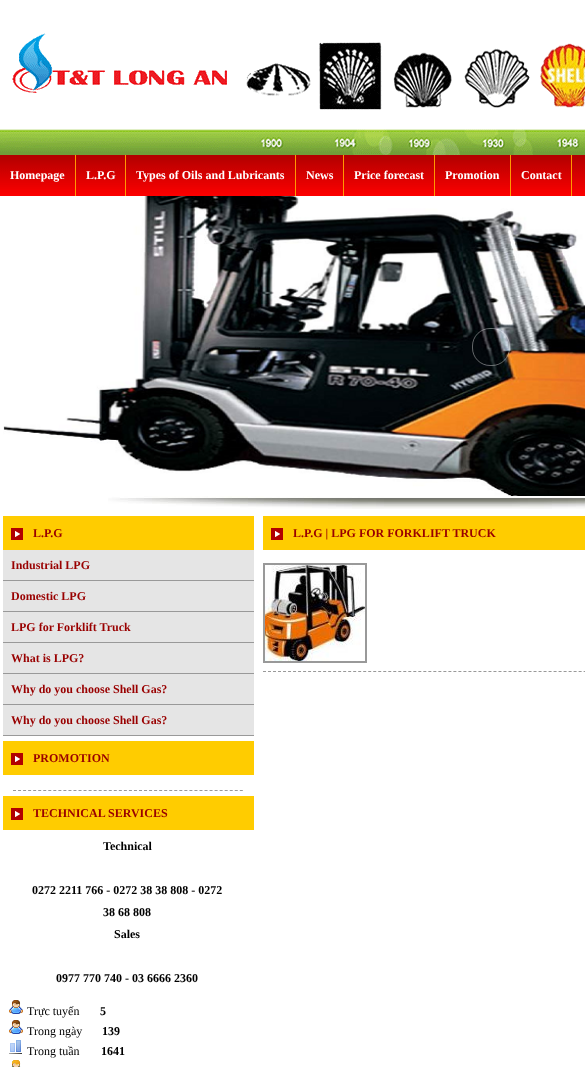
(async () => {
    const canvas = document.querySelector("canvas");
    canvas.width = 585;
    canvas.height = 1067;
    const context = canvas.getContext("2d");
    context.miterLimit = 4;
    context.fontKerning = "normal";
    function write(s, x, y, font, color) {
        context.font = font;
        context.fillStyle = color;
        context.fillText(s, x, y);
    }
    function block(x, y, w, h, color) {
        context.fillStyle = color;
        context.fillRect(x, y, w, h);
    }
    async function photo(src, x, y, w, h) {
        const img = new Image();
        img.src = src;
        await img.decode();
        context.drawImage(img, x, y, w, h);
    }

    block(0, 0, 585, 1067, "rgb(255, 255, 255)");
    await photo("media/1.png", 0, 33, 585, 122);
    await photo("media/2.png", 0, 155, 585, 41);
    block(75, 155, 1, 41, "rgb(255, 153, 0)");
    write("Homepage", 10, 179, "bold 12px Liberation Serif", "rgb(255, 255, 255)");
    block(125, 155, 1, 41, "rgb(255, 153, 0)");
    write("L.P.G", 86, 179, "bold 12px Liberation Serif", "rgb(255, 255, 255)");
    block(295, 155, 1, 41, "rgb(255, 153, 0)");
    write("Types of Oils and Lubricants", 136, 179, "bold 12px Liberation Serif", "rgb(255, 255, 255)");
    block(343, 155, 1, 41, "rgb(255, 153, 0)");
    write("News", 306, 179, "bold 12px Liberation Serif", "rgb(255, 255, 255)");
    block(434, 155, 1, 41, "rgb(255, 153, 0)");
    write("Price forecast", 354, 179, "bold 12px Liberation Serif", "rgb(255, 255, 255)");
    block(510, 155, 1, 41, "rgb(255, 153, 0)");
    write("Promotion", 445, 179, "bold 12px Liberation Serif", "rgb(255, 255, 255)");
    block(571, 155, 1, 41, "rgb(255, 153, 0)");
    write("Contact", 521, 179, "bold 12px Liberation Serif", "rgb(255, 255, 255)");
    await photo("media/3.png", 3, 196, 582, 300);
    context.beginPath();
    context.roundRect(472.5, 328.5, 37, 37, 17.5);
    context.strokeStyle = "rgba(255, 255, 255, 0.38)";
    context.stroke();
    await photo("media/4.png", 108, 496, 477, 13);
    block(3, 516, 251, 34, "rgb(255, 204, 0)");
    await photo("media/5.png", 11, 528, 12, 12);
    write("L.P.G", 33, 537, "bold 12px Liberation Serif", "rgb(153, 0, 0)");
    block(3, 550, 251, 30, "rgb(229, 229, 229)");
    block(3, 580, 251, 1, "rgb(153, 153, 153)");
    write("Industrial LPG", 11, 569, "bold 12px Liberation Serif", "rgb(153, 0, 0)");
    block(3, 581, 251, 30, "rgb(229, 229, 229)");
    block(3, 611, 251, 1, "rgb(153, 153, 153)");
    write("Domestic LPG", 11, 600, "bold 12px Liberation Serif", "rgb(153, 0, 0)");
    block(3, 612, 251, 30, "rgb(229, 229, 229)");
    block(3, 642, 251, 1, "rgb(153, 153, 153)");
    write("LPG for Forklift Truck", 11, 631, "bold 12px Liberation Serif", "rgb(153, 0, 0)");
    block(3, 643, 251, 30, "rgb(229, 229, 229)");
    block(3, 673, 251, 1, "rgb(153, 153, 153)");
    write("What is LPG?", 11, 662, "bold 12px Liberation Serif", "rgb(153, 0, 0)");
    block(3, 674, 251, 30, "rgb(229, 229, 229)");
    block(3, 704, 251, 1, "rgb(153, 153, 153)");
    write("Why do you choose Shell Gas?", 11, 693, "bold 12px Liberation Serif", "rgb(153, 0, 0)");
    block(3, 705, 251, 30, "rgb(229, 229, 229)");
    block(3, 735, 251, 1, "rgb(153, 153, 153)");
    write("Why do you choose Shell Gas?", 11, 724, "bold 12px Liberation Serif", "rgb(153, 0, 0)");
    block(3, 741, 251, 34, "rgb(255, 204, 0)");
    await photo("media/5.png", 11, 753, 12, 12);
    write("PROMOTION", 33, 762, "bold 12px Liberation Serif", "rgb(153, 0, 0)");
    context.beginPath();
    context.moveTo(13, 790.5);
    context.lineTo(243, 790.5);
    context.strokeStyle = "rgb(153, 153, 153)";
    context.setLineDash([3, 2.04]);
    context.stroke();
    block(3, 796, 251, 34, "rgb(255, 204, 0)");
    await photo("media/5.png", 11, 808, 12, 12);
    write("TECHNICAL SERVICES", 33, 817, "bold 12px Liberation Serif", "rgb(153, 0, 0)");
    write("Technical", 103, 850, "bold 12px Liberation Serif", "rgb(0, 0, 0)");
    write("0272 2211 766 - 0272 38 38 808 - 0272", 32, 894, "bold 12px Liberation Serif", "rgb(0, 0, 0)");
    write("38 68 808", 103, 916, "bold 12px Liberation Serif", "rgb(0, 0, 0)");
    write("Sales", 114, 938, "bold 12px Liberation Serif", "rgb(0, 0, 0)");
    write("0977 770 740 - 03 6666 2360", 56, 982, "bold 12px Liberation Serif", "rgb(0, 0, 0)");
    await photo("media/6.png", 9, 1000, 14, 14);
    write("Trực tuyến", 27, 1015, "12px Liberation Serif", "rgb(0, 0, 0)");
    write("5", 100, 1015, "bold 12px Liberation Serif", "rgb(0, 0, 0)");
    await photo("media/6.png", 9, 1020, 14, 14);
    write("Trong ngày", 27, 1035, "12px Liberation Serif", "rgb(0, 0, 0)");
    write("139", 102, 1035, "bold 12px Liberation Serif", "rgb(0, 0, 0)");
    await photo("media/7.png", 9, 1040, 13, 14);
    write("Trong tuần", 27, 1055, "12px Liberation Serif", "rgb(0, 0, 0)");
    write("1641", 101, 1055, "bold 12px Liberation Serif", "rgb(0, 0, 0)");
    await photo("media/8.png", 11, 1060, 10, 7);
    block(263, 516, 322, 34, "rgb(255, 204, 0)");
    await photo("media/5.png", 271, 528, 12, 12);
    write("L.P.G | LPG FOR FORKLIFT TRUCK", 293, 537, "bold 12px Liberation Serif", "rgb(153, 0, 0)");
    context.beginPath();
    context.moveTo(263, 671.5);
    context.lineTo(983, 671.5);
    context.setLineDash([3, 2.01]);
    context.stroke();
    context.lineWidth = 2;
    context.setLineDash([]);
    context.strokeRect(264, 564, 102, 98);
    await photo("media/9.png", 265, 565, 100, 96);
})();
